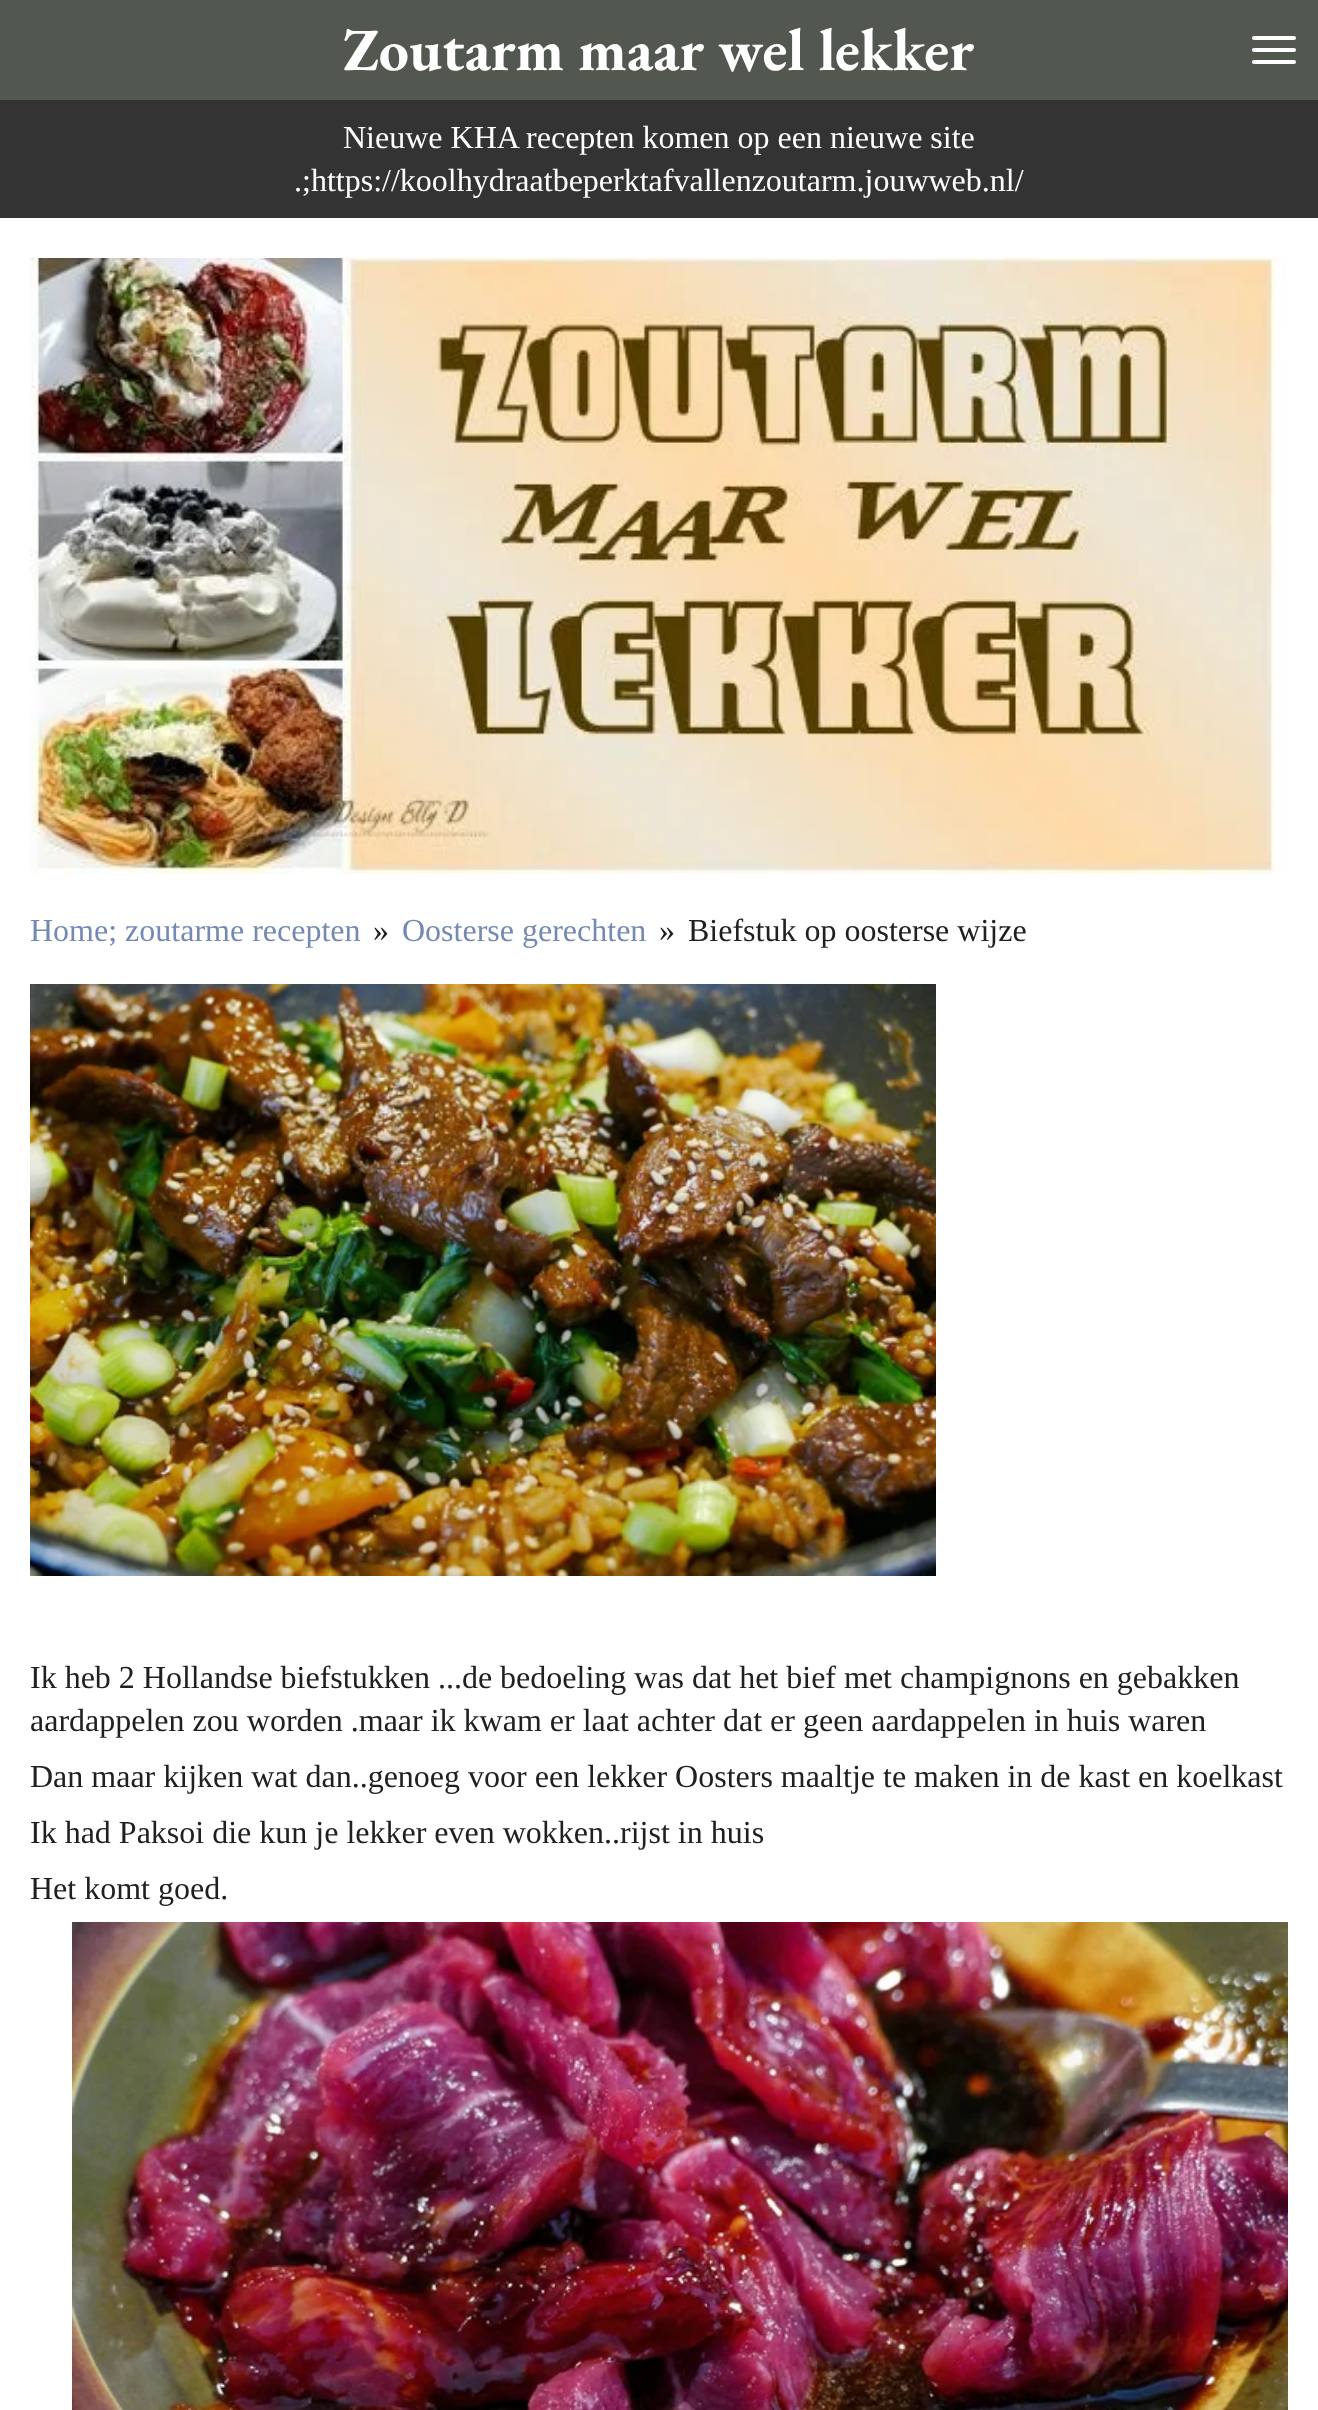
(async () => {
    const canvas = document.querySelector("canvas");
    canvas.width = 1318;
    canvas.height = 2410;
    const context = canvas.getContext("2d");
    context.miterLimit = 4;
    context.fontKerning = "normal";
    function write(s, x, y, font, color) {
        context.font = font;
        context.fillStyle = color;
        context.fillText(s, x, y);
    }
    function block(x, y, w, h, color) {
        context.fillStyle = color;
        context.fillRect(x, y, w, h);
    }
    function card(x, y, w, h, r, color) {
        context.fillStyle = color;
        context.beginPath();
        context.roundRect(x, y, w, h, r);
        context.fill();
    }
    async function photo(src, x, y, w, h) {
        const img = new Image();
        img.src = src;
        await img.decode();
        context.drawImage(img, x, y, w, h);
    }

    block(0, 0, 1318, 2410, "rgb(255, 255, 255)");
    block(0, 0, 88, 100, "rgb(82, 88, 80)");
    block(88, 0, 1230, 100, "rgb(82, 88, 80)");
    card(1252, 48, 44, 4, 2, "rgb(255, 255, 255)");
    card(1252, 36, 44, 4, 2, "rgb(255, 255, 255)");
    card(1252, 60, 44, 4, 2, "rgb(255, 255, 255)");
    write("Zoutarm maar wel lekker", 343, 70, "bold 60px EB Garamond", "rgb(255, 255, 255)");
    block(0, 100, 1318, 118, "rgb(51, 51, 51)");
    write("Nieuwe KHA recepten komen op een nieuwe site", 343, 148, "32px Liberation Serif", "rgb(255, 255, 255)");
    write(".;https://koolhydraatbeperktafvallenzoutarm.jouwweb.nl/", 294, 191, "32px Liberation Serif", "rgb(255, 255, 255)");
    await photo("media/1.png", 30, 258, 1258, 616);
    write("Home; zoutarme recepten", 30, 941, "32px Liberation Serif", "rgb(116, 138, 178)");
    write("»", 373, 941, "32px Liberation Serif", "rgb(32, 32, 32)");
    write("Oosterse gerechten", 402, 941, "32px Liberation Serif", "rgb(116, 138, 178)");
    write("»", 659, 941, "32px Liberation Serif", "rgb(32, 32, 32)");
    write("Biefstuk op oosterse wijze", 688, 941, "32px Liberation Serif", "rgb(32, 32, 32)");
    await photo("media/2.png", 30, 984, 906, 592);
    write("Ik heb 2 Hollandse biefstukken ...de bedoeling was dat het bief met champignons en gebakken", 30, 1688, "32px Liberation Serif", "rgb(32, 32, 32)");
    write("aardappelen zou worden .maar ik kwam er laat achter dat er geen aardappelen in huis waren", 30, 1731, "32px Liberation Serif", "rgb(32, 32, 32)");
    write("Dan maar kijken wat dan..genoeg voor een lekker Oosters maaltje te maken in de kast en koelkast", 30, 1787, "32px Liberation Serif", "rgb(32, 32, 32)");
    write("Ik had Paksoi die kun je lekker even wokken..rijst in huis", 30, 1843, "32px Liberation Serif", "rgb(32, 32, 32)");
    write("Het komt goed.", 30, 1899, "32px Liberation Serif", "rgb(32, 32, 32)");
    await photo("media/3.png", 72, 1922, 1216, 488);
})();
